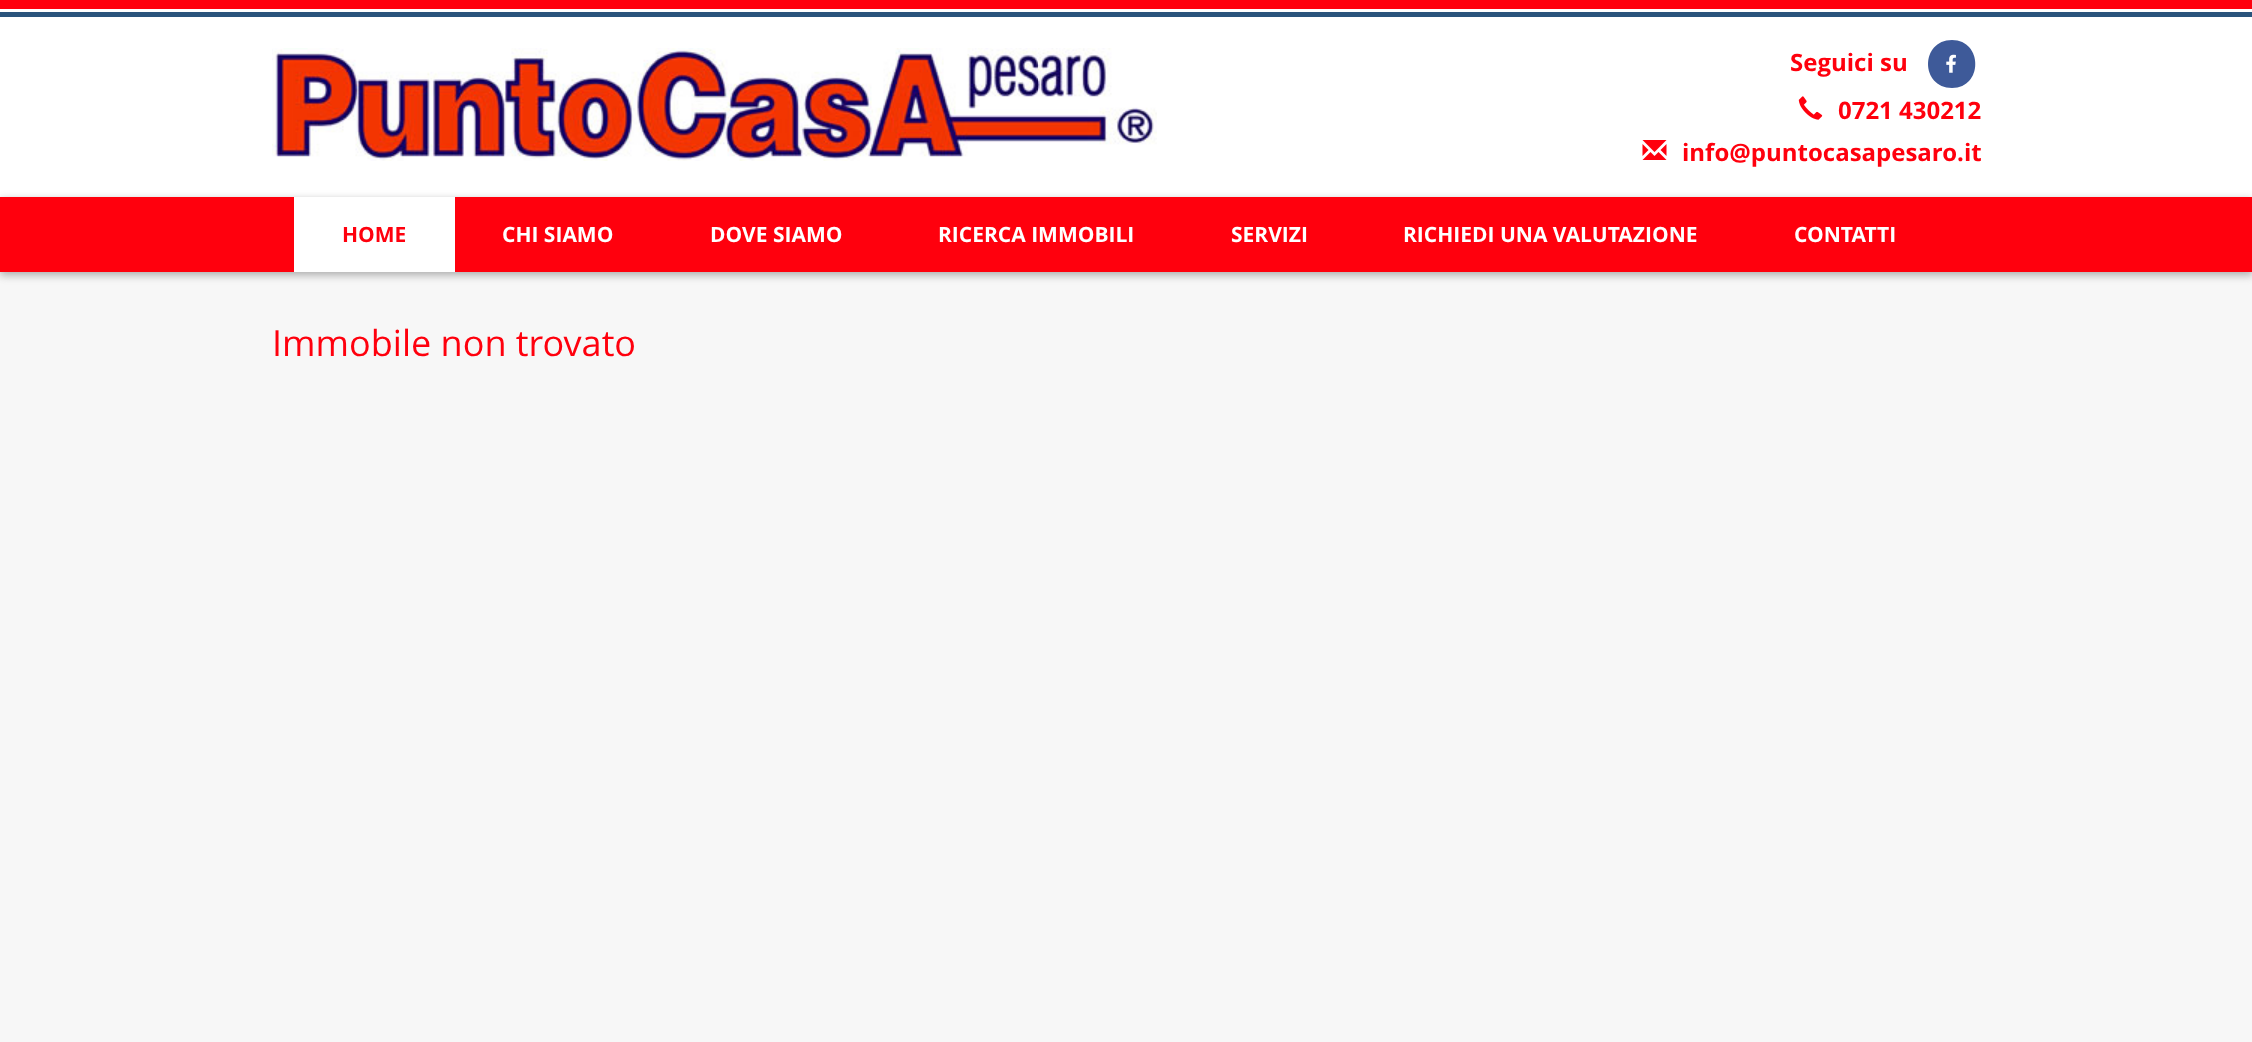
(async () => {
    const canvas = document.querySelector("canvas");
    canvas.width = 2252;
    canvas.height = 1042;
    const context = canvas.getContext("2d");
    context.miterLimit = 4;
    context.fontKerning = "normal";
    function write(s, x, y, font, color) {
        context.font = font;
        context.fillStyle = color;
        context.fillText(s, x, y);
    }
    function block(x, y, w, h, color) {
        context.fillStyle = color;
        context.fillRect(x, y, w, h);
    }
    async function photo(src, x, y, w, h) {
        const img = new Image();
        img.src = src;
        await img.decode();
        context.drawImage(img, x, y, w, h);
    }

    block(0, 0, 2252, 1042, "rgb(247, 247, 247)");
    block(0, 9, 2252, 188, "rgb(255, 255, 255)");
    block(0, 0, 2252, 9, "rgb(255, 0, 13)");
    block(0, 12, 2252, 5, "rgb(42, 84, 124)");
    await photo("media/1.png", 272, 48, 885, 113);
    write("Seguici su", 1790, 71, "bold 24px Open Sans", "rgb(255, 0, 13)");
    context.fillStyle = "rgb(62, 90, 153)";
    context.beginPath();
    context.moveTo(1952, 88);
    context.bezierCurveTo(1983, 88, 1983, 40, 1952, 40);
    context.bezierCurveTo(1920, 40, 1920, 88, 1952, 88);
    context.closePath();
    context.fill();
    await photo("media/2.png", 1946, 54, 10, 19);
    await photo("media/3.png", 1798, 96, 25, 24);
    write("0721 430212", 1838, 119, "bold 24px Open Sans", "rgb(255, 0, 13)");
    await photo("media/4.png", 1642, 140, 25, 20);
    write("info@puntocasapesaro.it", 1682, 161, "bold 24px Open Sans", "rgb(255, 0, 13)");
    context.fillStyle = "rgb(170, 170, 170)";
    context.filter = "blur(4px)";
    context.beginPath();
    context.rect(0, 200, 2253, 75);
    context.fill();
    context.filter = "none";
    block(0, 197, 2252, 75, "rgb(255, 0, 13)");
    block(294, 197, 161, 75, "rgb(255, 255, 255)");
    write("HOME", 342, 242, "bold 21px Open Sans", "rgb(255, 0, 13)");
    write("CHI SIAMO", 502, 242, "bold 21px Open Sans", "rgb(255, 255, 255)");
    write("DOVE SIAMO", 710, 242, "bold 21px Open Sans", "rgb(255, 255, 255)");
    write("RICERCA IMMOBILI", 938, 242, "bold 21px Open Sans", "rgb(255, 255, 255)");
    write("SERVIZI", 1231, 242, "bold 21px Open Sans", "rgb(255, 255, 255)");
    write("RICHIEDI UNA VALUTAZIONE", 1403, 242, "bold 21px Open Sans", "rgb(255, 255, 255)");
    write("CONTATTI", 1794, 242, "bold 21px Open Sans", "rgb(255, 255, 255)");
    write("Immobile non trovato", 272, 356, "36px Open Sans", "rgb(255, 0, 13)");
})();
